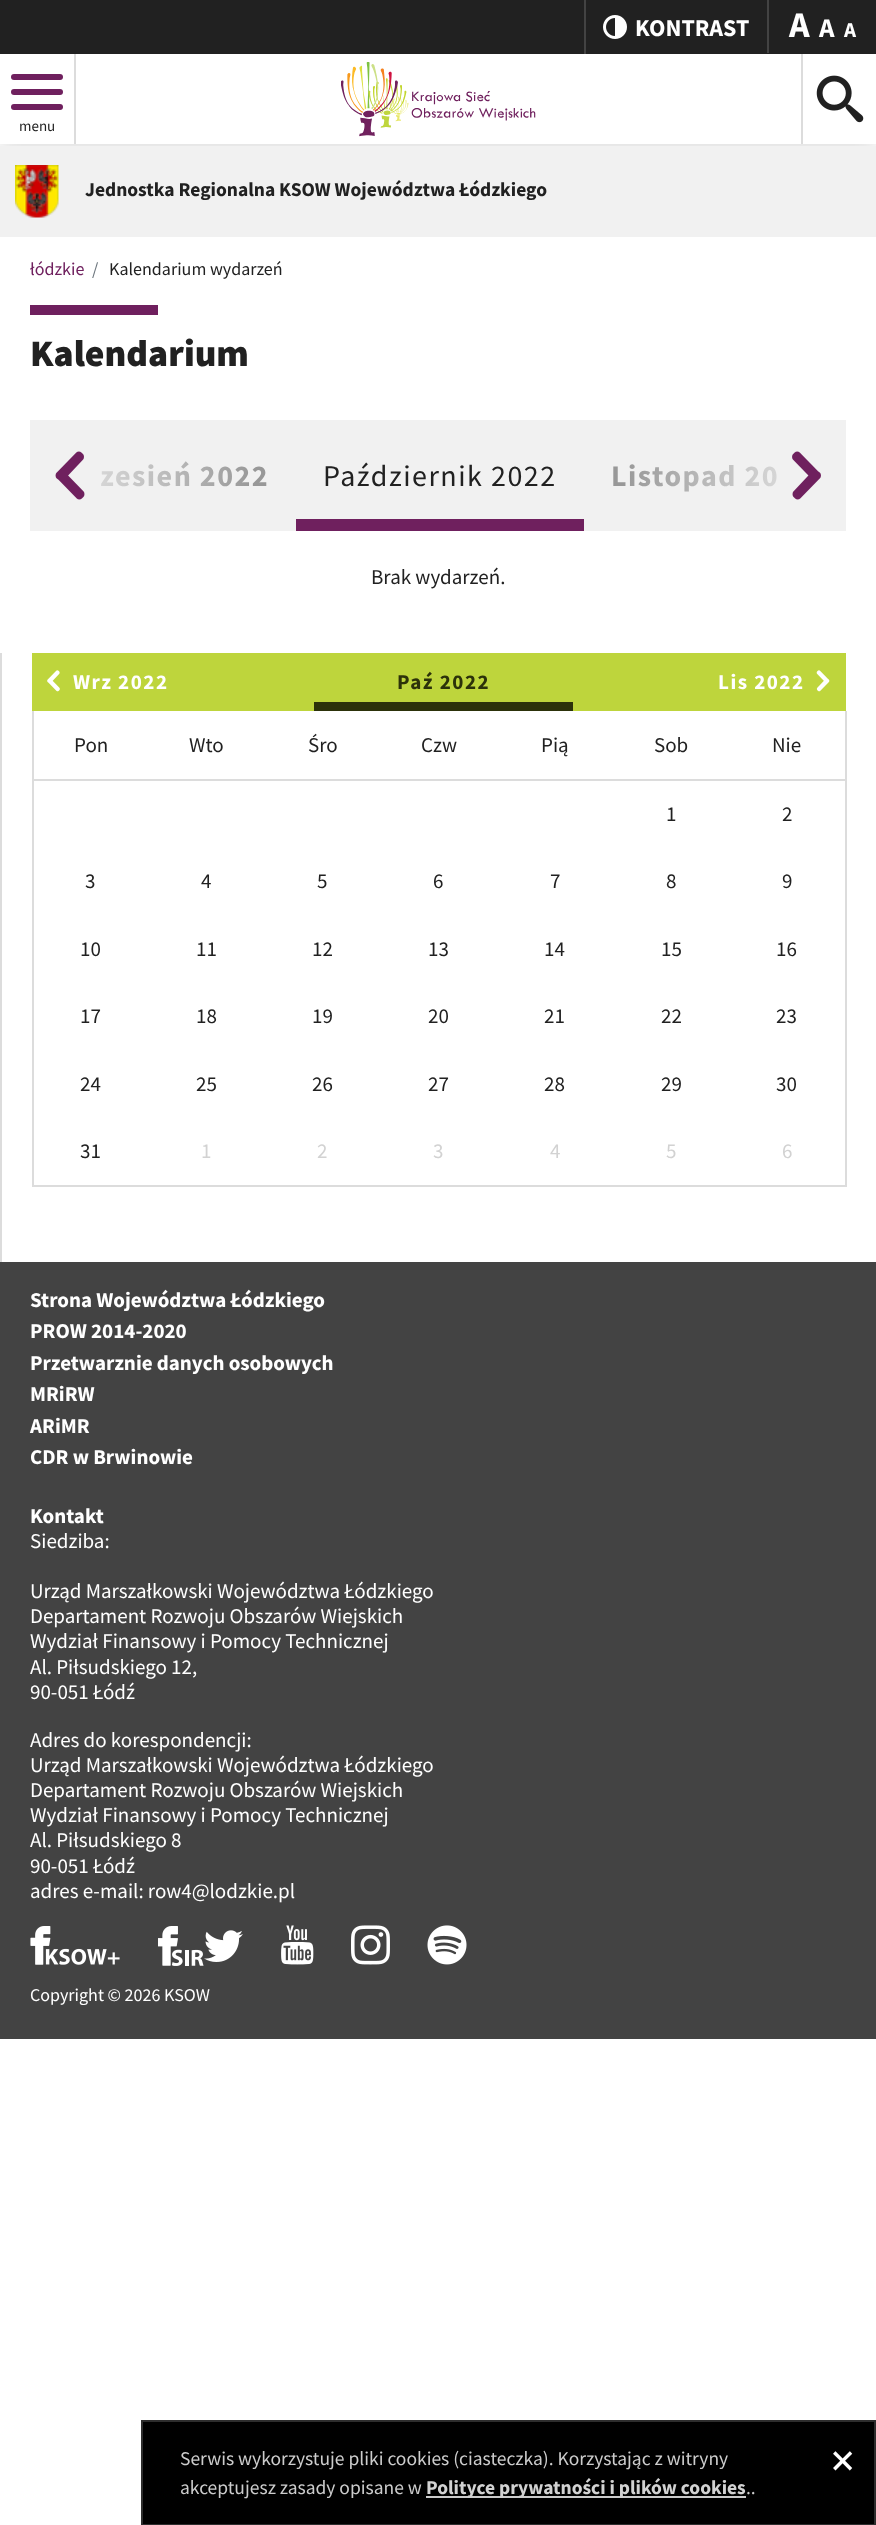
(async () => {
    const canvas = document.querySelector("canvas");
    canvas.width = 876;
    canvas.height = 2525;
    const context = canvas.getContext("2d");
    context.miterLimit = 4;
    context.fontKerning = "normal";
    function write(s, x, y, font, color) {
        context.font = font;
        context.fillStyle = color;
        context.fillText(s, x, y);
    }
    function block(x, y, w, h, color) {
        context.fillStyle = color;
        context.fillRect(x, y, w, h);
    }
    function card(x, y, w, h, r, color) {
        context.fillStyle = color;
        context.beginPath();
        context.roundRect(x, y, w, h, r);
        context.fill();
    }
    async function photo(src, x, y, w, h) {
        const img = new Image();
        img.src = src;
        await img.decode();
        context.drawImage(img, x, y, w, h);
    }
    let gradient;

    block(0, 0, 876, 2525, "rgb(255, 255, 255)");
    context.save();
    context.beginPath();
    context.rect(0, 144, 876, 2);
    context.clip();
    context.fillStyle = "rgba(0, 0, 0, 0.1)";
    context.filter = "blur(11px)";
    context.beginPath();
    context.rect(0, 15, 876, 144);
    context.fill();
    context.filter = "none";
    context.restore();
    block(0, 0, 876, 54, "rgb(33, 33, 33)");
    block(584, 0, 2, 54, "rgb(67, 67, 67)");
    await photo("media/1.png", 603, 15, 24, 24);
    write("KONTRAST", 635, 36, "bold 24px Source Sans Pro", "rgb(255, 255, 255)");
    block(767, 0, 2, 53, "rgb(67, 67, 67)");
    write("A", 789, 37, "bold 36px Source Sans Pro", "rgb(255, 255, 255)");
    write("A", 819, 37, "bold 27px Source Sans Pro", "rgb(255, 255, 255)");
    write("A", 844, 37, "bold 21px Source Sans Pro", "rgb(255, 255, 255)");
    block(74, 54, 2, 90, "rgb(220, 220, 220)");
    card(11, 104, 52, 6, 3, "rgb(111, 32, 94)");
    card(11, 74, 52, 6, 3, "rgb(111, 32, 94)");
    card(11, 89, 52, 6, 3, "rgb(111, 32, 94)");
    write("menu", 19, 131, "15px Source Sans Pro", "rgb(33, 33, 33)");
    await photo("media/2.png", 341, 62, 195, 75);
    block(801, 54, 2, 90, "rgb(220, 220, 220)");
    await photo("media/3.png", 816, 75, 48, 48);
    block(0, 146, 876, 91, "rgb(241, 241, 241)");
    await photo("media/4.png", 15, 165, 44, 53);
    write("Jednostka Regionalna KSOW Województwa Łódzkiego", 85, 196, "bold 19.5px Source Sans Pro", "rgb(33, 33, 33)");
    write("łódzkie", 30, 275, "18px Source Sans Pro", "rgb(111, 32, 94)");
    write("/", 92, 275, "18px Source Sans Pro", "rgb(108, 117, 125)");
    write("Kalendarium wydarzeń", 109, 275, "18px Source Sans Pro", "rgb(33, 33, 33)");
    block(30, 305, 128, 10, "rgb(111, 32, 94)");
    write("Kalendarium", 30, 366, "900 37.5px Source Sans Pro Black", "rgb(33, 33, 33)");
    block(31, 420, 814, 111, "rgb(241, 241, 241)");
    context.letterSpacing = "1.5px";
    write("zesień 2022", 100, 486, "bold 30px Source Sans Pro", "rgb(152, 152, 152)");
    gradient = context.createLinearGradient(30, 476, 255, 476);
    gradient.addColorStop(0, "rgb(241, 241, 241)");
    gradient.addColorStop(1, "rgba(241, 241, 241, 0)");
    context.fillStyle = gradient;
    context.fillRect(30, 420, 218, 111);
    write("Listopad 20", 611, 486, "bold 30px Source Sans Pro", "rgb(152, 152, 152)");
    gradient = context.createLinearGradient(846, 476, 621, 476);
    gradient.addColorStop(0, "rgb(241, 241, 241)");
    gradient.addColorStop(1, "rgba(241, 241, 241, 0)");
    context.fillStyle = gradient;
    context.fillRect(630, 420, 216, 111);
    await photo("media/5.png", 55, 451, 30, 49);
    block(296, 519, 288, 12, "rgb(111, 32, 94)");
    write("Październik 2022", 323, 486, "30px Source Sans Pro", "rgb(33, 33, 33)");
    await photo("media/6.png", 792, 451, 29, 49);
    context.letterSpacing = "0px";
    write("Brak wydarzeń.", 371, 584, "21px Source Sans Pro", "rgb(33, 33, 33)");
    block(0, 653, 2, 609, "rgb(220, 220, 220)");
    block(32, 653, 814, 58, "rgb(190, 213, 60)");
    await photo("media/7.png", 47, 670, 13, 22);
    context.letterSpacing = "1.5px";
    write("Wrz 2022", 73, 689, "bold 21px Source Sans Pro", "rgb(255, 255, 255)");
    block(314, 702, 259, 9, "rgb(44, 50, 10)");
    write("Paź 2022", 397, 689, "bold 21px Source Sans Pro", "rgb(44, 50, 10)");
    write("Lis 2022", 718, 689, "bold 21px Source Sans Pro", "rgb(255, 255, 255)");
    await photo("media/8.png", 816, 670, 14, 22);
    block(845, 711, 2, 476, "rgb(220, 220, 220)");
    block(32, 1185, 814, 2, "rgb(220, 220, 220)");
    block(32, 711, 2, 476, "rgb(220, 220, 220)");
    context.letterSpacing = "0px";
    write("Pon", 74, 752, "21px Source Sans Pro", "rgb(33, 33, 33)");
    write("Wto", 189, 752, "21px Source Sans Pro", "rgb(33, 33, 33)");
    write("Śro", 308, 752, "21px Source Sans Pro", "rgb(33, 33, 33)");
    write("Czw", 421, 752, "21px Source Sans Pro", "rgb(33, 33, 33)");
    write("Pią", 541, 752, "21px Source Sans Pro", "rgb(33, 33, 33)");
    write("Sob", 654, 752, "21px Source Sans Pro", "rgb(33, 33, 33)");
    block(32, 779, 814, 2, "rgb(220, 220, 220)");
    write("Nie", 772, 752, "21px Source Sans Pro", "rgb(33, 33, 33)");
    write("1", 666, 821, "21px Source Sans Pro", "rgb(33, 33, 33)");
    write("2", 782, 821, "21px Source Sans Pro", "rgb(33, 33, 33)");
    write("3", 85, 888, "21px Source Sans Pro", "rgb(33, 33, 33)");
    write("4", 201, 888, "21px Source Sans Pro", "rgb(33, 33, 33)");
    write("5", 317, 888, "21px Source Sans Pro", "rgb(33, 33, 33)");
    write("6", 433, 888, "21px Source Sans Pro", "rgb(33, 33, 33)");
    write("7", 550, 888, "21px Source Sans Pro", "rgb(33, 33, 33)");
    write("8", 666, 888, "21px Source Sans Pro", "rgb(33, 33, 33)");
    write("9", 782, 888, "21px Source Sans Pro", "rgb(33, 33, 33)");
    write("10", 80, 956, "21px Source Sans Pro", "rgb(33, 33, 33)");
    write("11", 196, 956, "21px Source Sans Pro", "rgb(33, 33, 33)");
    write("12", 312, 956, "21px Source Sans Pro", "rgb(33, 33, 33)");
    write("13", 428, 956, "21px Source Sans Pro", "rgb(33, 33, 33)");
    write("14", 544, 956, "21px Source Sans Pro", "rgb(33, 33, 33)");
    write("15", 661, 956, "21px Source Sans Pro", "rgb(33, 33, 33)");
    write("16", 776, 956, "21px Source Sans Pro", "rgb(33, 33, 33)");
    write("17", 80, 1023, "21px Source Sans Pro", "rgb(33, 33, 33)");
    write("18", 196, 1023, "21px Source Sans Pro", "rgb(33, 33, 33)");
    write("19", 312, 1023, "21px Source Sans Pro", "rgb(33, 33, 33)");
    write("20", 428, 1023, "21px Source Sans Pro", "rgb(33, 33, 33)");
    write("21", 544, 1023, "21px Source Sans Pro", "rgb(33, 33, 33)");
    write("22", 661, 1023, "21px Source Sans Pro", "rgb(33, 33, 33)");
    write("23", 776, 1023, "21px Source Sans Pro", "rgb(33, 33, 33)");
    write("24", 80, 1091, "21px Source Sans Pro", "rgb(33, 33, 33)");
    write("25", 196, 1091, "21px Source Sans Pro", "rgb(33, 33, 33)");
    write("26", 312, 1091, "21px Source Sans Pro", "rgb(33, 33, 33)");
    write("27", 428, 1091, "21px Source Sans Pro", "rgb(33, 33, 33)");
    write("28", 544, 1091, "21px Source Sans Pro", "rgb(33, 33, 33)");
    write("29", 661, 1091, "21px Source Sans Pro", "rgb(33, 33, 33)");
    write("30", 776, 1091, "21px Source Sans Pro", "rgb(33, 33, 33)");
    write("31", 80, 1158, "21px Source Sans Pro", "rgb(33, 33, 33)");
    write("1", 201, 1158, "21px Source Sans Pro", "rgb(210, 210, 210)");
    write("2", 317, 1158, "21px Source Sans Pro", "rgb(210, 210, 210)");
    write("3", 433, 1158, "21px Source Sans Pro", "rgb(210, 210, 210)");
    write("4", 550, 1158, "21px Source Sans Pro", "rgb(210, 210, 210)");
    write("5", 666, 1158, "21px Source Sans Pro", "rgb(210, 210, 210)");
    write("6", 782, 1158, "21px Source Sans Pro", "rgb(210, 210, 210)");
    block(0, 1262, 876, 777, "rgb(67, 67, 67)");
    write("Strona Województwa Łódzkiego", 30, 1307, "bold 21px Source Sans Pro", "rgb(255, 255, 255)");
    write("PROW 2014-2020", 30, 1338, "bold 21px Source Sans Pro", "rgb(255, 255, 255)");
    write("Przetwarznie danych osobowych", 30, 1370, "bold 21px Source Sans Pro", "rgb(255, 255, 255)");
    write("MRiRW", 30, 1401, "bold 21px Source Sans Pro", "rgb(255, 255, 255)");
    write("ARiMR", 30, 1433, "bold 21px Source Sans Pro", "rgb(255, 255, 255)");
    write("CDR w Brwinowie", 30, 1464, "bold 21px Source Sans Pro", "rgb(255, 255, 255)");
    write("Kontakt", 30, 1523, "bold 21px Source Sans Pro", "rgb(255, 255, 255)");
    write("Siedziba:", 30, 1548, "21px Source Sans Pro", "rgb(255, 255, 255)");
    write("Urząd Marszałkowski Województwa Łódzkiego", 30, 1598, "21px Source Sans Pro", "rgb(255, 255, 255)");
    write("Departament Rozwoju Obszarów Wiejskich", 30, 1623, "21px Source Sans Pro", "rgb(255, 255, 255)");
    write("Wydział Finansowy i Pomocy Technicznej", 30, 1648, "21px Source Sans Pro", "rgb(255, 255, 255)");
    write("Al. Piłsudskiego 12,", 30, 1674, "21px Source Sans Pro", "rgb(255, 255, 255)");
    write("90-051 Łódź", 30, 1699, "21px Source Sans Pro", "rgb(255, 255, 255)");
    write("Adres do korespondencji:", 30, 1747, "21px Source Sans Pro", "rgb(255, 255, 255)");
    write("Urząd Marszałkowski Województwa Łódzkiego", 30, 1772, "21px Source Sans Pro", "rgb(255, 255, 255)");
    write("Departament Rozwoju Obszarów Wiejskich", 30, 1797, "21px Source Sans Pro", "rgb(255, 255, 255)");
    write("Wydział Finansowy i Pomocy Technicznej", 30, 1822, "21px Source Sans Pro", "rgb(255, 255, 255)");
    write("Al. Piłsudskiego 8", 30, 1847, "21px Source Sans Pro", "rgb(255, 255, 255)");
    write("90-051 Łódź", 30, 1873, "21px Source Sans Pro", "rgb(255, 255, 255)");
    write("adres e-mail: row4@lodzkie.pl", 30, 1898, "21px Source Sans Pro", "rgb(255, 255, 255)");
    await photo("media/9.png", 30, 1926, 90, 39);
    await photo("media/10.png", 158, 1926, 46, 40);
    await photo("media/11.png", 204, 1930, 39, 32);
    await photo("media/12.png", 281, 1925, 33, 40);
    await photo("media/13.png", 351, 1925, 39, 40);
    await photo("media/14.png", 427, 1925, 40, 40);
    write("Copyright © 2026 KSOW", 30, 2001, "18px Source Sans Pro", "rgb(255, 255, 255)");
    context.fillStyle = "rgb(0, 0, 0)";
    context.beginPath();
    context.rect(142, 2421, 733, 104);
    context.fill();
    context.strokeStyle = "rgb(45, 45, 45)";
    context.lineWidth = 2;
    context.stroke();
    write("Serwis wykorzystuje pliki cookies (ciasteczka). Korzystając z witryny", 180, 2465, "19.5px Source Sans Pro", "rgb(204, 204, 204)");
    write("akceptujesz zasady opisane w", 180, 2494, "19.5px Source Sans Pro", "rgb(204, 204, 204)");
    block(426, 2496, 320, 2, "rgb(204, 204, 204)");
    write("Polityce prywatności i plików cookies", 426, 2494, "bold 19.5px Source Sans Pro", "rgb(210, 210, 210)");
    write("..", 746, 2494, "19.5px Source Sans Pro", "rgb(204, 204, 204)");
    write("×", 830, 2474, "42px DejaVu Sans Mono", "rgb(255, 255, 255)");
})();
